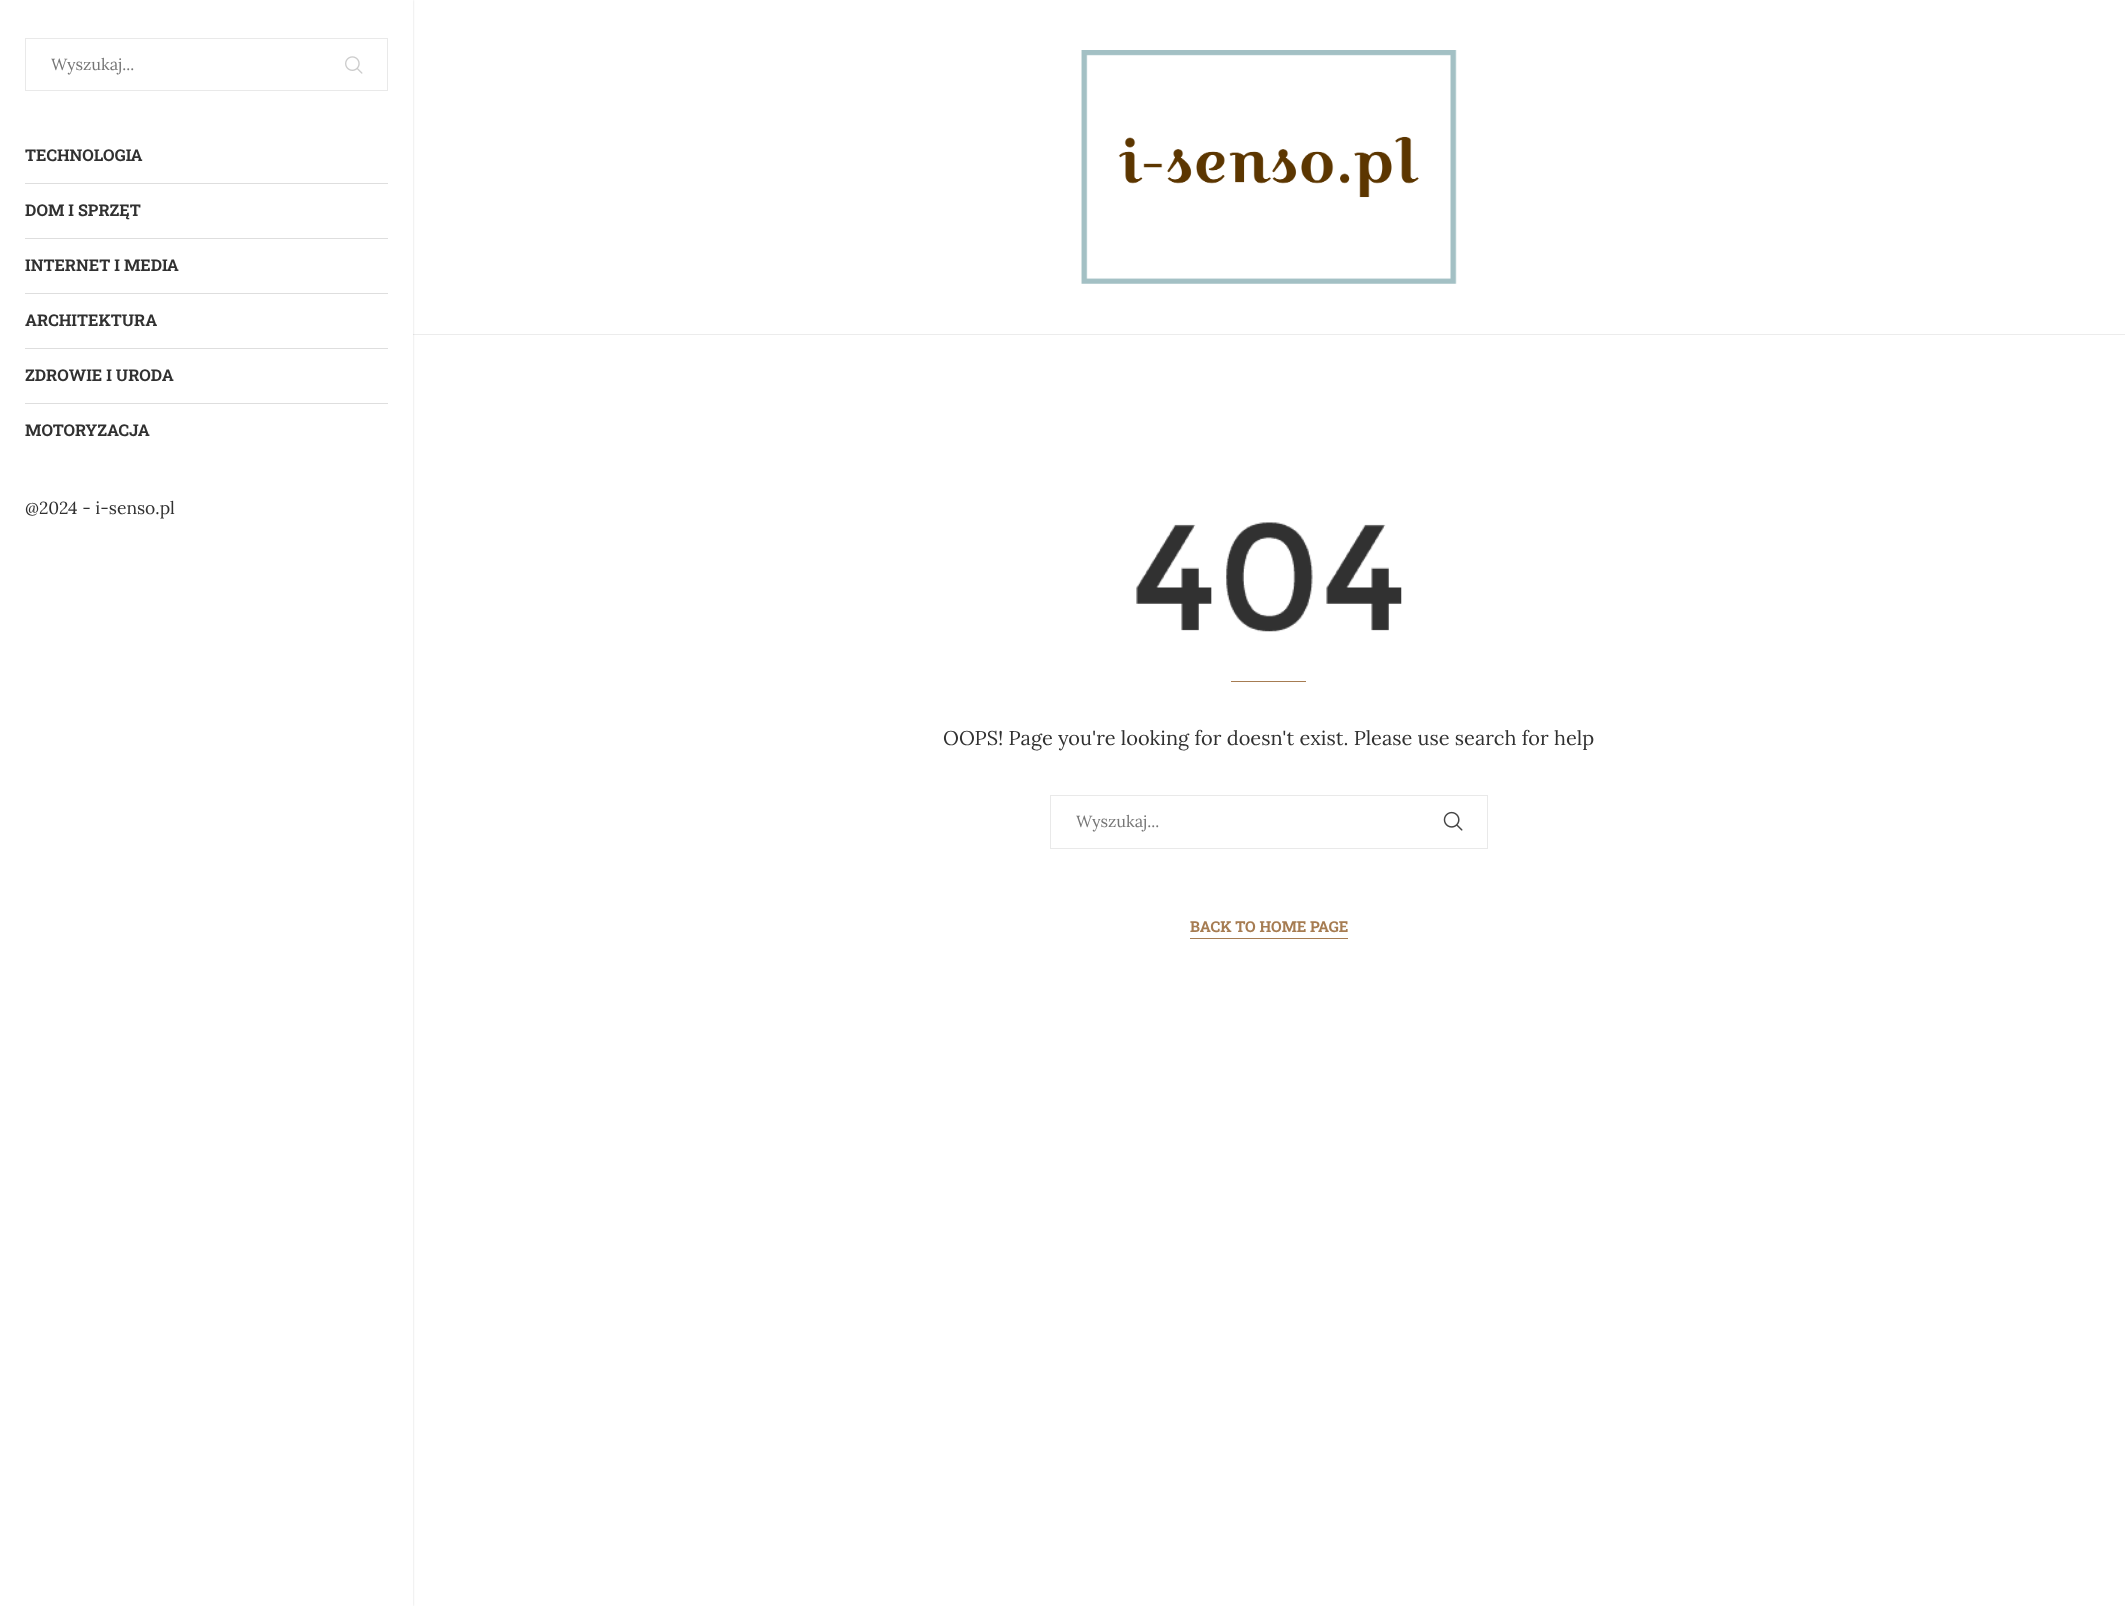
(async () => {
    const canvas = document.querySelector("canvas");
    canvas.width = 2125;
    canvas.height = 1606;
    const context = canvas.getContext("2d");
    context.miterLimit = 4;
    context.fontKerning = "normal";
    function write(s, x, y, font, color) {
        context.font = font;
        context.fillStyle = color;
        context.fillText(s, x, y);
    }
    function block(x, y, w, h, color) {
        context.fillStyle = color;
        context.fillRect(x, y, w, h);
    }
    async function photo(src, x, y, w, h) {
        const img = new Image();
        img.src = src;
        await img.decode();
        context.drawImage(img, x, y, w, h);
    }

    block(0, 0, 2125, 1606, "rgb(255, 255, 255)");
    block(413, 334, 1712, 1, "rgb(236, 236, 236)");
    context.fillStyle = "rgba(0, 0, 0, 0.15)";
    context.filter = "blur(1px)";
    context.beginPath();
    context.rect(0, 0, 413, 1606);
    context.fill();
    context.filter = "none";
    block(0, 0, 413, 1606, "rgb(255, 255, 255)");
    context.strokeStyle = "rgb(233, 233, 233)";
    context.strokeRect(25.5, 38.5, 362, 52);
    write("Wyszukaj...", 51, 70, "16.25px Lora", "rgb(117, 117, 117)");
    await photo("media/1.png", 345, 56, 18, 18);
    block(25, 183, 363, 1, "rgb(222, 222, 222)");
    write("TECHNOLOGIA", 25, 161, "bold 16.25px Roboto Slab", "rgb(49, 49, 49)");
    block(25, 238, 363, 1, "rgb(222, 222, 222)");
    write("DOM I SPRZĘT", 25, 216, "bold 16.25px Roboto Slab", "rgb(49, 49, 49)");
    block(25, 293, 363, 1, "rgb(222, 222, 222)");
    write("INTERNET I MEDIA", 25, 271, "bold 16.25px Roboto Slab", "rgb(49, 49, 49)");
    block(25, 348, 363, 1, "rgb(222, 222, 222)");
    write("ARCHITEKTURA", 25, 326, "bold 16.25px Roboto Slab", "rgb(49, 49, 49)");
    block(25, 403, 363, 1, "rgb(222, 222, 222)");
    write("ZDROWIE I URODA", 25, 381, "bold 16.25px Roboto Slab", "rgb(49, 49, 49)");
    write("MOTORYZACJA", 25, 436, "bold 16.25px Roboto Slab", "rgb(49, 49, 49)");
    write("@2024 - i-senso.pl", 25, 514, "17.5px Lora", "rgb(49, 49, 49)");
    await photo("media/2.png", 1081, 50, 376, 234);
    await photo("media/3.png", 1136, 522, 266, 110);
    block(1231, 681, 75, 1, "rgb(166, 124, 82)");
    write("OOPS! Page you're looking for doesn't exist. Please use search for help", 943, 745, "20px Lora", "rgb(49, 49, 49)");
    context.strokeRect(1050.5, 795.5, 437, 53);
    write("Wyszukaj...", 1076, 827, "16.25px Lora", "rgb(117, 117, 117)");
    await photo("media/4.png", 1443, 811, 20, 20);
    write("BACK TO HOME PAGE", 1190, 932, "bold 15px Roboto Slab", "rgb(166, 124, 82)");
    block(1190, 938, 158, 1, "rgb(166, 124, 82)");
})();
